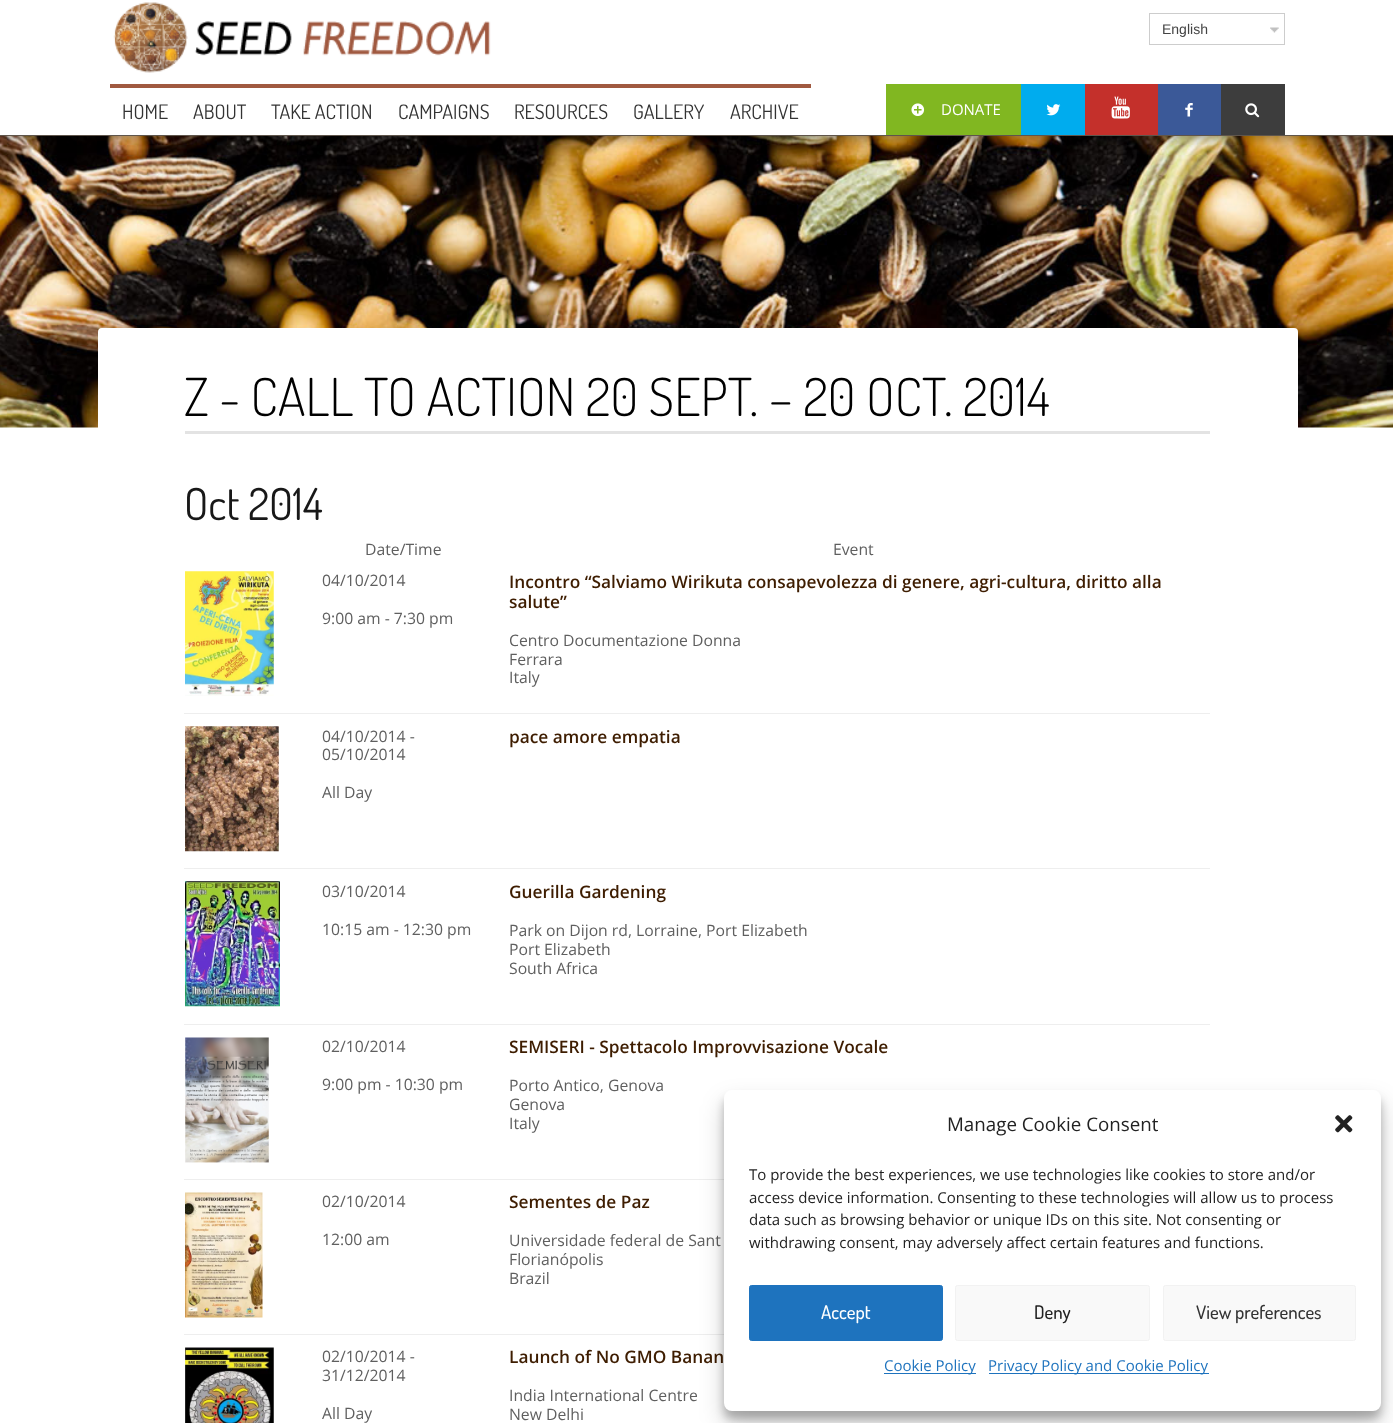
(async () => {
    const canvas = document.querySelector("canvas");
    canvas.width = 1393;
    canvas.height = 1423;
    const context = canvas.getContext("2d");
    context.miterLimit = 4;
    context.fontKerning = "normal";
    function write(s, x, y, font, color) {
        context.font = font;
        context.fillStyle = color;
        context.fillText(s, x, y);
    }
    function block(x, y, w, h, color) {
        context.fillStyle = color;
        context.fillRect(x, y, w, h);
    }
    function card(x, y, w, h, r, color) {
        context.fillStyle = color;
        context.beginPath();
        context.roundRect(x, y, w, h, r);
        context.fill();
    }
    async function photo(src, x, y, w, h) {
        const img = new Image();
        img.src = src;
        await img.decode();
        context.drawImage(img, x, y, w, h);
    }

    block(0, 0, 1393, 1423, "rgb(255, 255, 255)");
    await photo("media/8.png", 0, 136, 1393, 292);
    context.fillStyle = "rgba(0, 0, 0, 0.5)";
    context.filter = "blur(7.5px)";
    context.beginPath();
    context.rect(0, 0, 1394, 136);
    context.fill();
    context.filter = "none";
    block(0, 0, 1393, 135, "rgb(255, 255, 255)");
    block(0, 135, 1393, 1, "rgb(95, 85, 75)");
    await photo("media/1.png", 113, 2, 378, 71);
    await photo("media/2.png", 1270, 27, 9, 6);
    context.strokeStyle = "rgb(205, 205, 205)";
    context.strokeRect(1149.5, 13.5, 135, 31);
    write("English", 1162, 34, "14px Liberation Sans", "rgb(68, 68, 68)");
    block(110, 84, 701, 4, "rgb(160, 89, 64)");
    write("HOME", 122, 119, "20px Dosis", "rgb(51, 51, 51)");
    write("ABOUT", 193, 119, "20px Dosis", "rgb(51, 51, 51)");
    write("TAKE ACTION", 271, 119, "20px Dosis", "rgb(51, 51, 51)");
    write("CAMPAIGNS", 398, 119, "20px Dosis", "rgb(51, 51, 51)");
    write("RESOURCES", 514, 119, "20px Dosis", "rgb(51, 51, 51)");
    write("GALLERY", 633, 119, "20px Dosis", "rgb(51, 51, 51)");
    write("ARCHIVE", 730, 119, "20px Dosis", "rgb(51, 51, 51)");
    block(886, 84, 135, 51, "rgb(129, 183, 33)");
    await photo("media/3.png", 911, 103, 14, 14);
    write("DONATE", 941, 115, "15px Open Sans", "rgb(255, 255, 255)");
    block(1021, 84, 64, 51, "rgb(0, 172, 238)");
    await photo("media/4.png", 1046, 104, 15, 12);
    block(1085, 84, 73, 51, "rgb(196, 48, 43)");
    await photo("media/5.png", 1111, 96, 19, 23);
    block(1158, 84, 63, 51, "rgb(59, 89, 152)");
    await photo("media/6.png", 1185, 103, 8, 14);
    block(1221, 84, 64, 51, "rgb(61, 61, 61)");
    await photo("media/7.png", 1245, 103, 15, 15);
    card(98, 328, 1200, 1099, 4, "rgb(255, 255, 255)");
    block(185, 431, 1025, 3, "rgb(227, 227, 227)");
    write("Z - CALL TO ACTION 20 SEPT. – 20 OCT. 2014", 184, 416, "300 52.5px Dosis", "rgb(0, 0, 0)");
    write("Oct 2014", 184, 520, "44px Dosis", "rgb(24, 24, 24)");
    write("Date/Time", 365, 555, "15.75px Open Sans", "rgb(95, 95, 95)");
    write("Event", 833, 555, "15.75px Open Sans", "rgb(95, 95, 95)");
    await photo("media/9.png", 185, 571, 89, 125);
    write("04/10/2014", 322, 586, "15.75px Open Sans", "rgb(95, 95, 95)");
    write("9:00 am - 7:30 pm", 322, 624, "15.75px Open Sans", "rgb(95, 95, 95)");
    block(184, 713, 1026, 1, "rgb(238, 238, 238)");
    write("Incontro “Salviamo Wirikuta consapevolezza di genere, agri-cultura, diritto alla", 509, 588, "600 17.3px Open Sans", "rgb(62, 29, 1)");
    write("salute”", 509, 608, "600 17.3px Open Sans", "rgb(62, 29, 1)");
    write("Centro Documentazione Donna", 509, 646, "15.75px Open Sans", "rgb(95, 95, 95)");
    write("Ferrara", 509, 665, "15.75px Open Sans", "rgb(95, 95, 95)");
    write("Italy", 509, 683, "15.75px Open Sans", "rgb(95, 95, 95)");
    await photo("media/10.png", 185, 726, 94, 126);
    write("04/10/2014 -", 322, 742, "15.75px Open Sans", "rgb(95, 95, 95)");
    write("05/10/2014", 322, 760, "15.75px Open Sans", "rgb(95, 95, 95)");
    write("All Day", 322, 798, "15.75px Open Sans", "rgb(95, 95, 95)");
    block(184, 868, 1026, 1, "rgb(238, 238, 238)");
    write("pace amore empatia", 509, 743, "600 17.3px Open Sans", "rgb(62, 29, 1)");
    await photo("media/11.png", 185, 881, 95, 126);
    write("03/10/2014", 322, 897, "15.75px Open Sans", "rgb(95, 95, 95)");
    write("10:15 am - 12:30 pm", 322, 935, "15.75px Open Sans", "rgb(95, 95, 95)");
    block(184, 1024, 1026, 1, "rgb(238, 238, 238)");
    write("Guerilla Gardening", 509, 898, "600 17.3px Open Sans", "rgb(62, 29, 1)");
    write("Park on Dijon rd, Lorraine, Port Elizabeth", 509, 936, "15.75px Open Sans", "rgb(95, 95, 95)");
    write("Port Elizabeth", 509, 955, "15.75px Open Sans", "rgb(95, 95, 95)");
    write("South Africa", 509, 974, "15.75px Open Sans", "rgb(95, 95, 95)");
    await photo("media/12.png", 185, 1037, 84, 126);
    write("02/10/2014", 322, 1052, "15.75px Open Sans", "rgb(95, 95, 95)");
    write("9:00 pm - 10:30 pm", 322, 1090, "15.75px Open Sans", "rgb(95, 95, 95)");
    block(184, 1179, 540, 1, "rgb(238, 238, 238)");
    write("SEMISERI - Spettacolo Improvvisazione Vocale", 509, 1053, "600 17.3px Open Sans", "rgb(62, 29, 1)");
    write("Porto Antico, Genova", 509, 1091, "15.75px Open Sans", "rgb(95, 95, 95)");
    write("Genova", 509, 1110, "15.75px Open Sans", "rgb(95, 95, 95)");
    write("Italy", 509, 1129, "15.75px Open Sans", "rgb(95, 95, 95)");
    await photo("media/13.png", 185, 1192, 78, 126);
    write("02/10/2014", 322, 1207, "15.75px Open Sans", "rgb(95, 95, 95)");
    write("12:00 am", 322, 1245, "15.75px Open Sans", "rgb(95, 95, 95)");
    block(184, 1334, 540, 1, "rgb(238, 238, 238)");
    write("Sementes de Paz", 509, 1208, "600 17.3px Open Sans", "rgb(62, 29, 1)");
    write("Universidade federal de Sant", 509, 1246, "15.75px Open Sans", "rgb(95, 95, 95)");
    write("Florianópolis", 509, 1265, "15.75px Open Sans", "rgb(95, 95, 95)");
    write("Brazil", 509, 1284, "15.75px Open Sans", "rgb(95, 95, 95)");
    await photo("media/14.png", 185, 1347, 89, 76);
    write("02/10/2014 -", 322, 1362, "15.75px Open Sans", "rgb(95, 95, 95)");
    write("31/12/2014", 322, 1381, "15.75px Open Sans", "rgb(95, 95, 95)");
    write("All Day", 322, 1419, "15.75px Open Sans", "rgb(95, 95, 95)");
    write("Launch of No GMO Banan", 509, 1363, "600 17.3px Open Sans", "rgb(62, 29, 1)");
    write("India International Centre", 509, 1401, "15.75px Open Sans", "rgb(95, 95, 95)");
    write("New Delhi", 509, 1420, "15.75px Open Sans", "rgb(95, 95, 95)");
    context.fillStyle = "rgba(0, 0, 0, 0.23)";
    context.filter = "blur(4px)";
    context.beginPath();
    context.roundRect(724, 1098, 657, 321, 8);
    context.fill();
    context.filter = "none";
    context.fillStyle = "rgba(0, 0, 0, 0.19)";
    context.filter = "blur(12.5px)";
    context.beginPath();
    context.roundRect(724, 1103, 657, 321, 8);
    context.fill();
    context.filter = "none";
    card(724, 1090, 657, 321, 8, "rgb(255, 255, 255)");
    write("Manage Cookie Consent", 947, 1131, "18.75px Open Sans", "rgb(34, 34, 34)");
    await photo("media/15.png", 1335, 1115, 18, 18);
    write("To provide the best experiences, we use technologies like cookies to store and/or", 749, 1180, "15px Open Sans", "rgb(34, 34, 34)");
    write("access device information. Consenting to these technologies will allow us to process", 749, 1203, "15px Open Sans", "rgb(34, 34, 34)");
    write("data such as browsing behavior or unique IDs on this site. Not consenting or", 749, 1225, "15px Open Sans", "rgb(34, 34, 34)");
    write("withdrawing consent, may adversely affect certain features and functions.", 749, 1248, "15px Open Sans", "rgb(34, 34, 34)");
    context.fillStyle = "rgb(30, 115, 190)";
    context.beginPath();
    context.roundRect(749.5, 1285.5, 193, 55, 2);
    context.fill();
    context.strokeStyle = "rgb(30, 115, 190)";
    context.stroke();
    write("Accept", 821, 1319, "500 18.75px Dosis", "rgb(255, 255, 255)");
    context.fillStyle = "rgb(249, 249, 249)";
    context.beginPath();
    context.roundRect(955.5, 1285.5, 194, 55, 2);
    context.fill();
    context.strokeStyle = "rgb(242, 242, 242)";
    context.stroke();
    write("Deny", 1034, 1319, "500 18.75px Dosis", "rgb(34, 34, 34)");
    context.fillStyle = "rgb(249, 249, 249)";
    context.beginPath();
    context.roundRect(1163.5, 1285.5, 192, 55, 2);
    context.fill();
    context.stroke();
    write("View preferences", 1196, 1319, "500 18.75px Dosis", "rgb(51, 51, 51)");
    block(884, 1373, 92, 1, "rgb(30, 115, 190)");
    write("Cookie Policy", 884, 1371, "15px Open Sans", "rgb(30, 115, 190)");
    block(989, 1373, 220, 1, "rgb(30, 115, 190)");
    write("Privacy Policy and Cookie Policy", 988, 1371, "15px Open Sans", "rgb(30, 115, 190)");
})();
